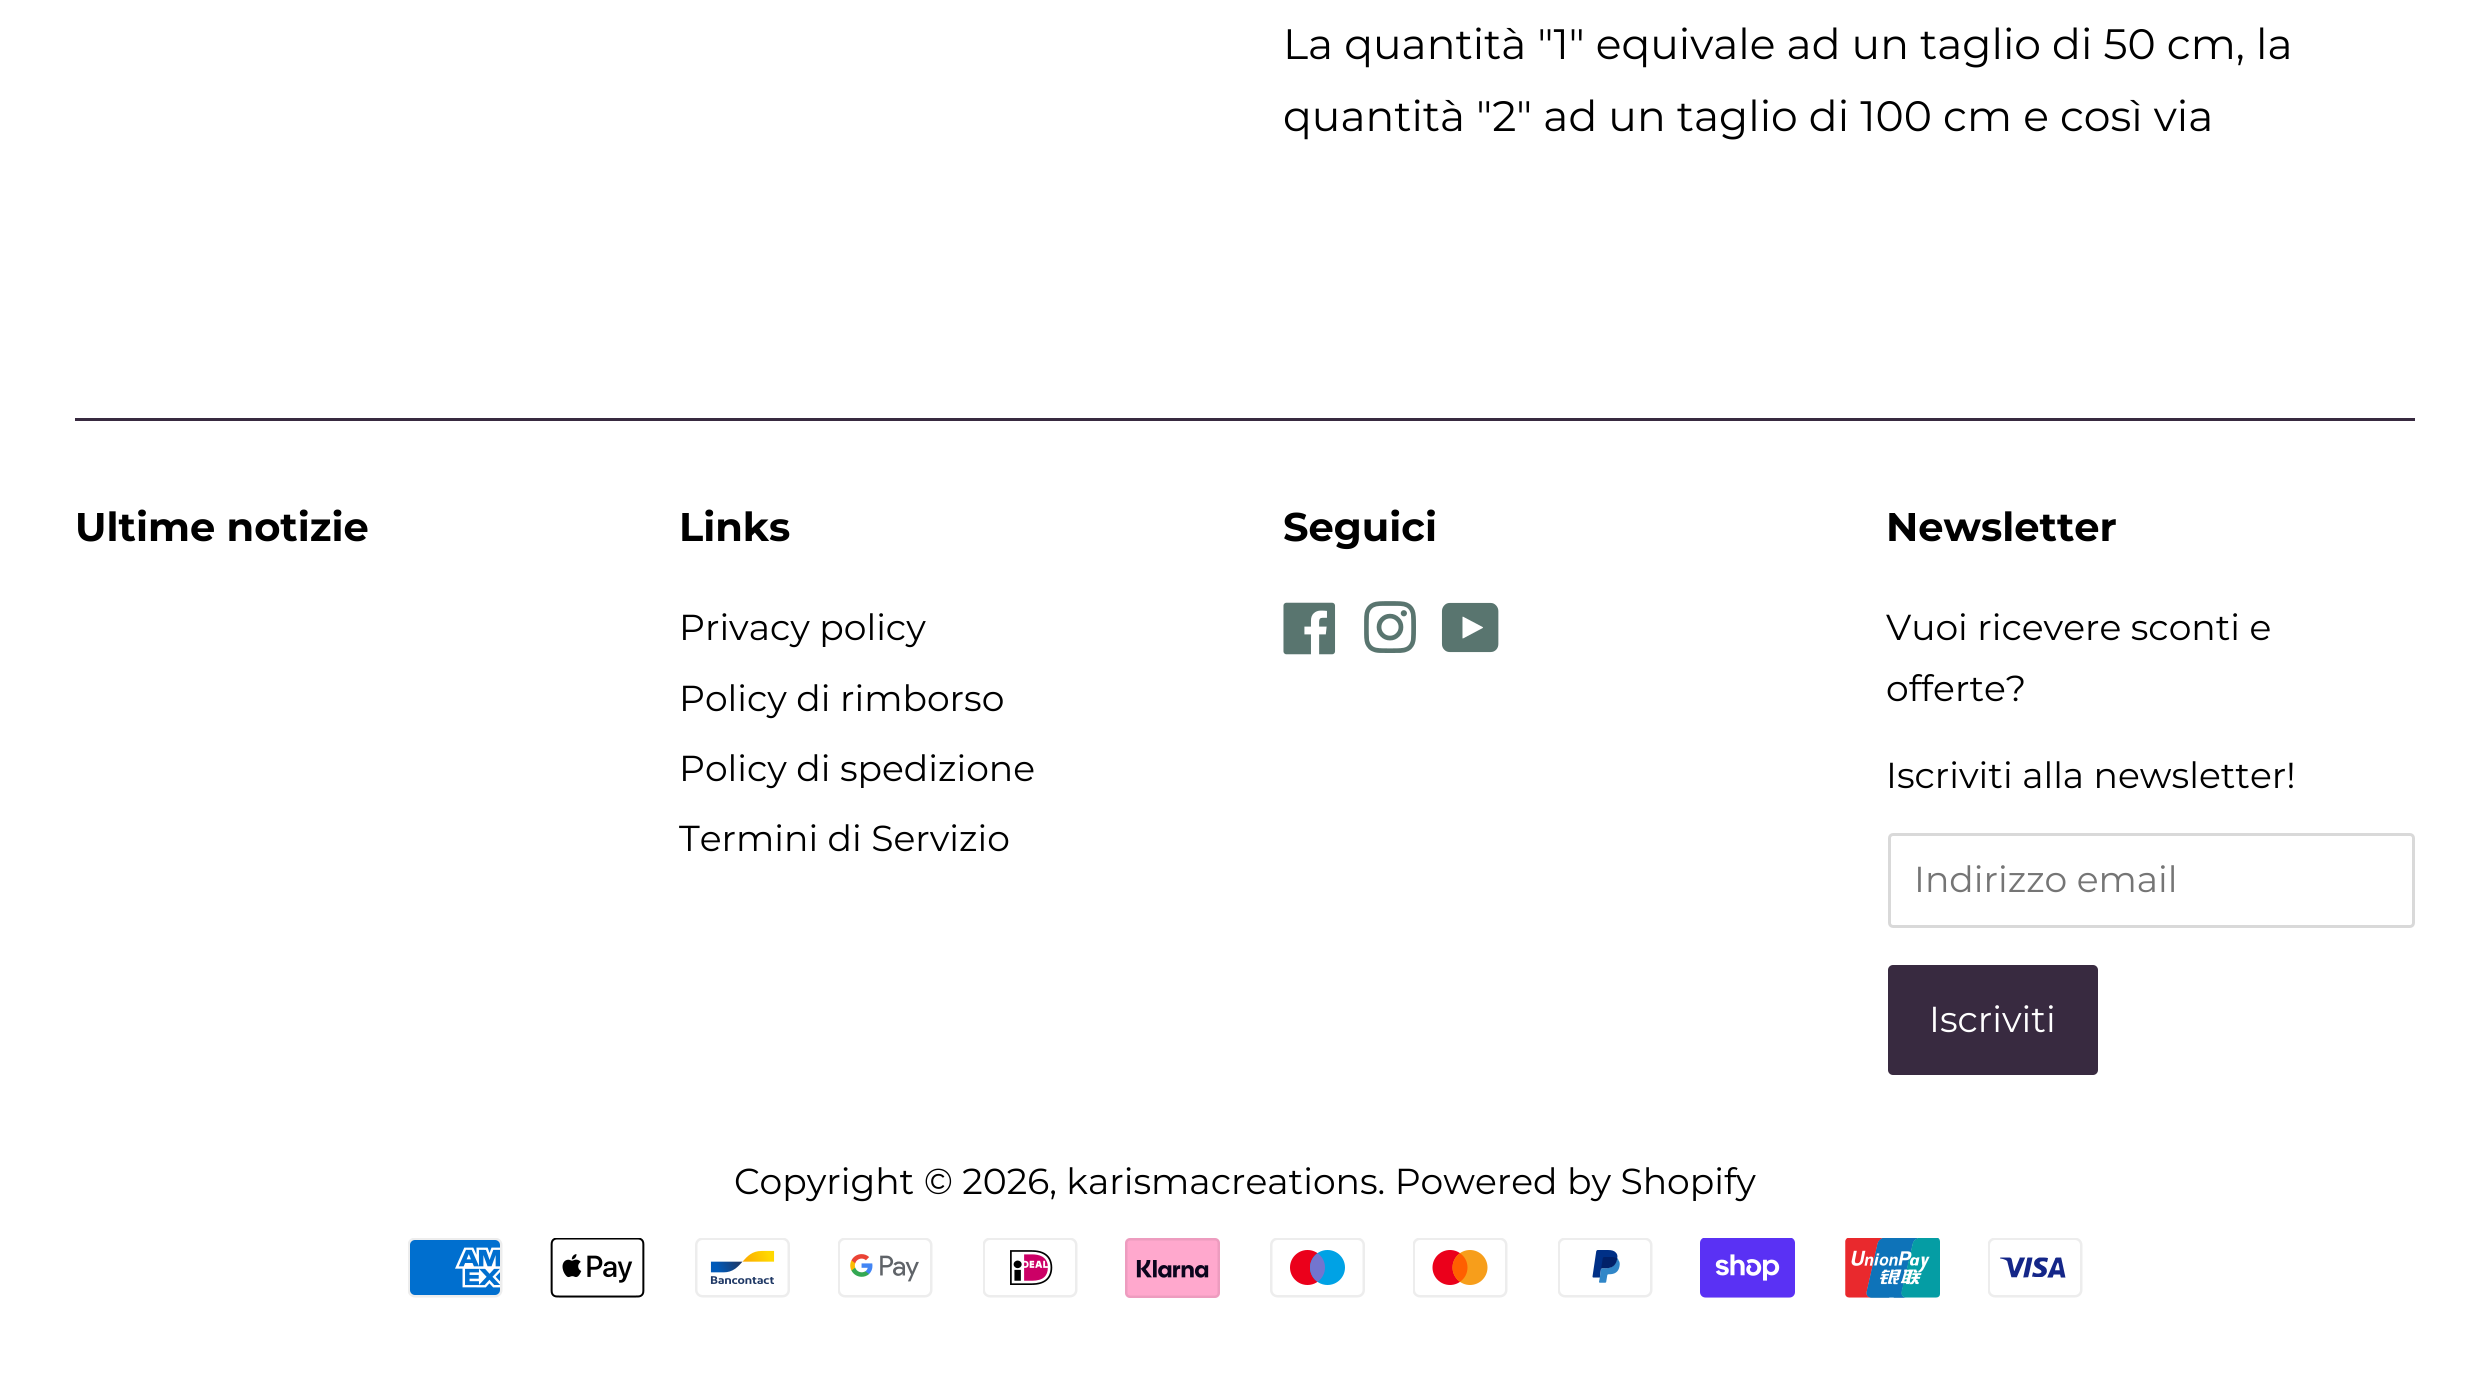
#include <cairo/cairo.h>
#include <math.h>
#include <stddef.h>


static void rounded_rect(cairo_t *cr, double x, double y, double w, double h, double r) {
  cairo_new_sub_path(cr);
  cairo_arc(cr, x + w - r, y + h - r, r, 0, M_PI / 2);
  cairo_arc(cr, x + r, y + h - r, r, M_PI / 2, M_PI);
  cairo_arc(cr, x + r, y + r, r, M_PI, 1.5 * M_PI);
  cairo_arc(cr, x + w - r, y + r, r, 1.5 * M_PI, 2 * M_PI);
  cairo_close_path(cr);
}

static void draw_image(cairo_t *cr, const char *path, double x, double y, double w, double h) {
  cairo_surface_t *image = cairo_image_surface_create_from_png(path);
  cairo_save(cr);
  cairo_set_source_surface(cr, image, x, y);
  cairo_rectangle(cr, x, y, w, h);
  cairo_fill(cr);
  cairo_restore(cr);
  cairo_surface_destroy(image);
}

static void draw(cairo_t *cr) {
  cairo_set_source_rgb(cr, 1, 1, 1);
  cairo_paint(cr);
  cairo_set_source_rgb(cr, 56 / 255.0, 42 / 255.0, 64 / 255.0);
  cairo_rectangle(cr, 75, 418, 2340, 3);
  cairo_fill(cr);
  draw_image(cr, "images/1.png", 1283, 602, 53, 53);
  draw_image(cr, "images/2.png", 1364, 601, 52, 52);
  draw_image(cr, "images/3.png", 1441, 602, 58, 51);
  rounded_rect(cr, 1889.5, 834.5, 524, 92, 3.5);
  cairo_set_source_rgb(cr, 217 / 255.0, 217 / 255.0, 217 / 255.0);
  cairo_set_line_width(cr, 3);
  cairo_stroke(cr);
  cairo_set_source_rgb(cr, 56 / 255.0, 42 / 255.0, 64 / 255.0);
  rounded_rect(cr, 1888, 965, 210, 110, 5);
  cairo_fill(cr);
  draw_image(cr, "images/4.png", 408, 1238, 95, 60);
  draw_image(cr, "images/5.png", 550, 1238, 95, 60);
  draw_image(cr, "images/6.png", 695, 1238, 95, 60);
  draw_image(cr, "images/7.png", 838, 1238, 95, 60);
  draw_image(cr, "images/8.png", 983, 1238, 95, 60);
  draw_image(cr, "images/9.png", 1125, 1238, 95, 60);
  draw_image(cr, "images/10.png", 1270, 1238, 95, 60);
  draw_image(cr, "images/11.png", 1413, 1238, 95, 60);
  draw_image(cr, "images/12.png", 1558, 1238, 95, 60);
  draw_image(cr, "images/13.png", 1700, 1238, 95, 60);
  draw_image(cr, "images/14.png", 1845, 1238, 95, 60);
  draw_image(cr, "images/15.png", 1988, 1238, 95, 60);
  cairo_select_font_face(cr, "Montserrat", CAIRO_FONT_SLANT_NORMAL, CAIRO_FONT_WEIGHT_NORMAL);
  cairo_set_font_size(cr, 42.5);
  cairo_set_source_rgb(cr, 0, 0, 0);
  cairo_move_to(cr, 1283, 59);
  cairo_show_text(cr, "La quantità \"1\" equivale ad un taglio di 50 cm, la");
  cairo_move_to(cr, 1283, 131);
  cairo_show_text(cr, "quantità \"2\" ad un taglio di 100 cm e così via");
  cairo_select_font_face(cr, "Montserrat", CAIRO_FONT_SLANT_NORMAL, CAIRO_FONT_WEIGHT_BOLD);
  cairo_set_font_size(cr, 40);
  cairo_move_to(cr, 75, 541);
  cairo_show_text(cr, "Ultime notizie");
  cairo_move_to(cr, 679, 541);
  cairo_show_text(cr, "Links");
  cairo_select_font_face(cr, "Montserrat", CAIRO_FONT_SLANT_NORMAL, CAIRO_FONT_WEIGHT_NORMAL);
  cairo_set_font_size(cr, 36.1);
  cairo_move_to(cr, 679, 640);
  cairo_show_text(cr, "Privacy policy");
  cairo_move_to(cr, 679, 711);
  cairo_show_text(cr, "Policy di rimborso");
  cairo_move_to(cr, 679, 781);
  cairo_show_text(cr, "Policy di spedizione");
  cairo_move_to(cr, 679, 851);
  cairo_show_text(cr, "Termini di Servizio");
  cairo_select_font_face(cr, "Montserrat", CAIRO_FONT_SLANT_NORMAL, CAIRO_FONT_WEIGHT_BOLD);
  cairo_set_font_size(cr, 40);
  cairo_move_to(cr, 1283, 541);
  cairo_show_text(cr, "Seguici");
  cairo_move_to(cr, 1886, 541);
  cairo_show_text(cr, "Newsletter");
  cairo_select_font_face(cr, "Montserrat", CAIRO_FONT_SLANT_NORMAL, CAIRO_FONT_WEIGHT_NORMAL);
  cairo_set_font_size(cr, 36.1);
  cairo_move_to(cr, 1886, 640);
  cairo_show_text(cr, "Vuoi ricevere sconti e");
  cairo_move_to(cr, 1886, 701);
  cairo_show_text(cr, "offerte?");
  cairo_move_to(cr, 1886, 788);
  cairo_show_text(cr, "Iscriviti alla newsletter!");
  cairo_set_source_rgb(cr, 117 / 255.0, 117 / 255.0, 117 / 255.0);
  cairo_move_to(cr, 1914, 892);
  cairo_show_text(cr, "Indirizzo email");
  cairo_set_source_rgb(cr, 1, 1, 1);
  cairo_move_to(cr, 1929, 1032);
  cairo_show_text(cr, "Iscriviti");
  cairo_set_source_rgb(cr, 0, 0, 0);
  cairo_move_to(cr, 734, 1194);
  cairo_show_text(cr, "Copyright © 2026, karismacreations. Powered by Shopify");
}

int main(void) {
  cairo_surface_t *surface = cairo_image_surface_create(CAIRO_FORMAT_RGB24, 2490, 1384);
  cairo_t *cr = cairo_create(surface);
  cairo_font_options_t *options = cairo_font_options_create();
  cairo_font_options_set_hint_metrics(options, CAIRO_HINT_METRICS_OFF);
  cairo_font_options_set_hint_style(options, CAIRO_HINT_STYLE_NONE);
  cairo_set_font_options(cr, options);
  cairo_set_miter_limit(cr, 4);
  draw(cr);
  cairo_surface_write_to_png(surface, "out.png");
  cairo_font_options_destroy(options);
  cairo_destroy(cr);
  cairo_surface_destroy(surface);
  return 0;
}
